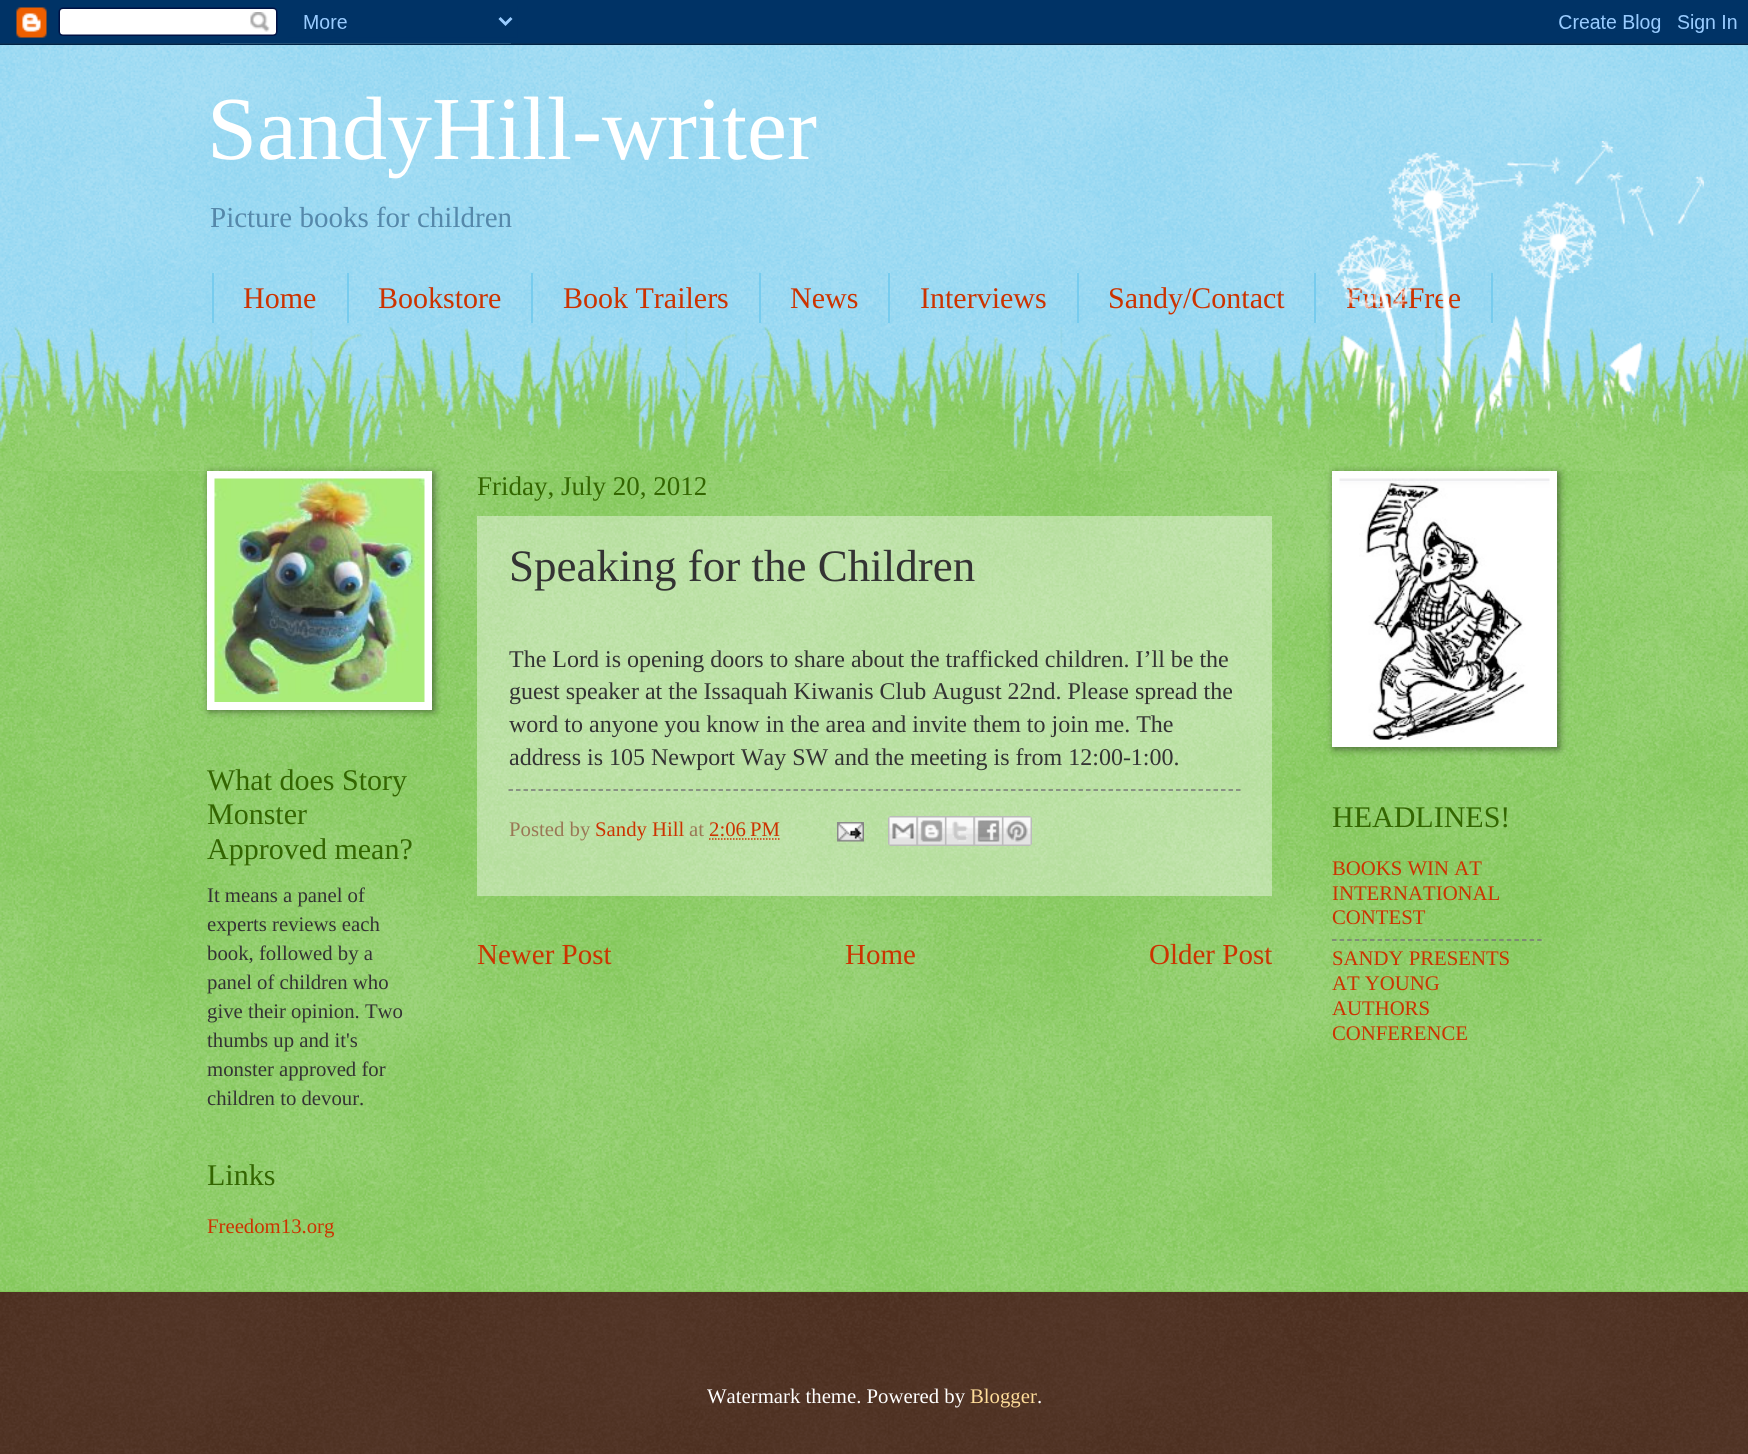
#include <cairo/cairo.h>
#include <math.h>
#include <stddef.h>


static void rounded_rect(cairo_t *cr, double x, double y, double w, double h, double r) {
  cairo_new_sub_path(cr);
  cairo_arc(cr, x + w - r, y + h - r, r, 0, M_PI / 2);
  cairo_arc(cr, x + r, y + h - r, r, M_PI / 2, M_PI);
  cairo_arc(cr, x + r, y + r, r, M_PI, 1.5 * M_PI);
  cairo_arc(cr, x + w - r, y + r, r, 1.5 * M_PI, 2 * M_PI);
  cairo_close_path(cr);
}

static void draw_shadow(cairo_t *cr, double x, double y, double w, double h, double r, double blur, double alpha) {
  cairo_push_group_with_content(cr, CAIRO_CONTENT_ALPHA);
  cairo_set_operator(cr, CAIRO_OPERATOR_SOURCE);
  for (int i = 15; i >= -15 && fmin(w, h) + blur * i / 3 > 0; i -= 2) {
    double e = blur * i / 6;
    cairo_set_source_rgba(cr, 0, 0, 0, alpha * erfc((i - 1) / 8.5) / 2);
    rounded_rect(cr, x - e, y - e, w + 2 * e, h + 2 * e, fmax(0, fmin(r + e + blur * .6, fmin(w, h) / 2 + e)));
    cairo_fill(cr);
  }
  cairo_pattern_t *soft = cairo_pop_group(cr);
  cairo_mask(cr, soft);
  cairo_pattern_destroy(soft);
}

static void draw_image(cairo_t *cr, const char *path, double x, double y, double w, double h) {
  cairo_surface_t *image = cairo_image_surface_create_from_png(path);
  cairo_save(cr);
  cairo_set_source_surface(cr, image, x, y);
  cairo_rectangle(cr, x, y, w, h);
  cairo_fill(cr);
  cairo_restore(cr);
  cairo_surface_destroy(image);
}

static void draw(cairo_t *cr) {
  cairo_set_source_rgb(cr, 119 / 255.0, 204 / 255.0, 238 / 255.0);
  cairo_paint(cr);
  draw_image(cr, "images/1.png", 0, 43, 1748, 421);
  draw_image(cr, "images/2.png", 0, 0, 1748, 45);
  cairo_set_source_rgb(cr, 119 / 255.0, 204 / 255.0, 238 / 255.0);
  cairo_rectangle(cr, 347, 273, 2, 50);
  cairo_fill(cr);
  cairo_rectangle(cr, 212, 273, 2, 50);
  cairo_fill(cr);
  cairo_rectangle(cr, 531, 273, 2, 50);
  cairo_fill(cr);
  cairo_rectangle(cr, 759, 273, 2, 50);
  cairo_fill(cr);
  cairo_rectangle(cr, 888, 273, 2, 50);
  cairo_fill(cr);
  cairo_rectangle(cr, 1077, 273, 2, 50);
  cairo_fill(cr);
  cairo_rectangle(cr, 1314, 273, 2, 50);
  cairo_fill(cr);
  cairo_rectangle(cr, 1491, 273, 2, 50);
  cairo_fill(cr);
  cairo_set_source_rgb(cr, 102 / 255.0, 187 / 255.0, 51 / 255.0);
  cairo_rectangle(cr, 0, 471, 1748, 821);
  cairo_fill(cr);
  draw_image(cr, "images/3.png", 0, 471, 1748, 821);
  cairo_set_source_rgba(cr, 1, 1, 1, 0.4);
  cairo_rectangle(cr, 477, 516, 795, 380);
  cairo_fill(cr);
  cairo_new_path(cr);
  cairo_move_to(cr, 508.5, 790);
  cairo_line_to(cr, 1240.5, 790);
  cairo_set_source_rgb(cr, 119 / 255.0, 119 / 255.0, 119 / 255.0);
  cairo_set_line_width(cr, 1.5);
  cairo_set_dash(cr, (double[]){4.5, 3}, 2, 0);
  cairo_stroke(cr);
  cairo_new_path(cr);
  cairo_move_to(cr, 709, 839);
  cairo_line_to(cr, 780, 839);
  cairo_set_source_rgb(cr, 204 / 255.0, 51 / 255.0, 0);
  cairo_set_dash(cr, (double[]){1.5, 1.5}, 2, 0);
  cairo_stroke(cr);
  draw_image(cr, "images/7.png", 837, 822, 27, 20);
  draw_image(cr, "images/8.png", 888, 816, 29, 30);
  draw_image(cr, "images/9.png", 916, 816, 29, 30);
  draw_image(cr, "images/10.png", 945, 816, 29, 30);
  draw_image(cr, "images/11.png", 973, 816, 29, 30);
  draw_image(cr, "images/12.png", 1002, 816, 30, 30);
  cairo_new_path(cr);
  cairo_move_to(cr, 1332, 940);
  cairo_line_to(cr, 1542, 940);
  cairo_set_source_rgb(cr, 119 / 255.0, 119 / 255.0, 119 / 255.0);
  cairo_set_dash(cr, (double[]){4.5, 3.1}, 2, 0);
  cairo_stroke(cr);
  cairo_set_source_rgb(cr, 51 / 255.0, 17 / 255.0, 0);
  cairo_rectangle(cr, 0, 1292, 1748, 162);
  cairo_fill(cr);
  draw_image(cr, "images/14.png", 0, 1291, 1748, 163);
  cairo_select_font_face(cr, "Liberation Serif", CAIRO_FONT_SLANT_NORMAL, CAIRO_FONT_WEIGHT_NORMAL);
  cairo_set_font_size(cr, 90);
  cairo_set_source_rgb(cr, 1, 1, 1);
  cairo_move_to(cr, 207, 159);
  cairo_show_text(cr, "SandyHill-writer");
  cairo_set_font_size(cr, 29);
  cairo_set_source_rgb(cr, 85 / 255.0, 136 / 255.0, 170 / 255.0);
  cairo_move_to(cr, 210, 227);
  cairo_show_text(cr, "Picture books for children");
  cairo_set_font_size(cr, 30);
  cairo_set_source_rgb(cr, 204 / 255.0, 51 / 255.0, 0);
  cairo_move_to(cr, 243, 308);
  cairo_show_text(cr, "Home");
  cairo_move_to(cr, 378, 308);
  cairo_show_text(cr, "Bookstore");
  cairo_move_to(cr, 563, 308);
  cairo_show_text(cr, "Book Trailers");
  cairo_move_to(cr, 790, 308);
  cairo_show_text(cr, "News");
  cairo_move_to(cr, 920, 308);
  cairo_show_text(cr, "Interviews");
  cairo_move_to(cr, 1108, 308);
  cairo_show_text(cr, "Sandy/Contact");
  cairo_move_to(cr, 1346, 308);
  cairo_show_text(cr, "Fun4Free");
  draw_image(cr, "images/4.png", 1329, 141, 375, 323);
  draw_image(cr, "images/5.png", 0, 326, 1748, 145);
  cairo_set_source_rgb(cr, 0, 0, 0);
  draw_shadow(cr, 209, 473, 225, 238, 0, 4, 0.5);
  cairo_set_source_rgb(cr, 1, 1, 1);
  cairo_rectangle(cr, 207, 471, 225, 239);
  cairo_fill(cr);
  draw_image(cr, "images/6.png", 214, 478, 211, 224);
  cairo_set_source_rgb(cr, 51 / 255.0, 102 / 255.0, 0);
  cairo_move_to(cr, 207, 790);
  cairo_show_text(cr, "What does Story");
  cairo_move_to(cr, 207, 824);
  cairo_show_text(cr, "Monster");
  cairo_move_to(cr, 207, 859);
  cairo_show_text(cr, "Approved mean?");
  cairo_set_font_size(cr, 20.75);
  cairo_set_source_rgb(cr, 51 / 255.0, 51 / 255.0, 51 / 255.0);
  cairo_move_to(cr, 207, 902);
  cairo_show_text(cr, "It means a panel of");
  cairo_move_to(cr, 207, 931);
  cairo_show_text(cr, "experts reviews each");
  cairo_move_to(cr, 207, 960);
  cairo_show_text(cr, "book, followed by a");
  cairo_move_to(cr, 207, 989);
  cairo_show_text(cr, "panel of children who");
  cairo_move_to(cr, 207, 1018);
  cairo_show_text(cr, "give their opinion. Two");
  cairo_move_to(cr, 207, 1047);
  cairo_show_text(cr, "thumbs up and it's");
  cairo_move_to(cr, 207, 1076);
  cairo_show_text(cr, "monster approved for");
  cairo_move_to(cr, 207, 1105);
  cairo_show_text(cr, "children to devour.");
  cairo_set_font_size(cr, 30);
  cairo_set_source_rgb(cr, 51 / 255.0, 102 / 255.0, 0);
  cairo_move_to(cr, 207, 1185);
  cairo_show_text(cr, "Links");
  cairo_set_font_size(cr, 20.75);
  cairo_set_source_rgb(cr, 204 / 255.0, 51 / 255.0, 0);
  cairo_move_to(cr, 207, 1233);
  cairo_show_text(cr, "Freedom13.org");
  cairo_set_font_size(cr, 27);
  cairo_set_source_rgb(cr, 51 / 255.0, 102 / 255.0, 0);
  cairo_move_to(cr, 477, 495);
  cairo_show_text(cr, "Friday, July 20, 2012");
  cairo_set_font_size(cr, 45);
  cairo_set_source_rgb(cr, 51 / 255.0, 51 / 255.0, 51 / 255.0);
  cairo_move_to(cr, 509, 581);
  cairo_show_text(cr, "Speaking for the Children");
  cairo_set_font_size(cr, 24);
  cairo_move_to(cr, 509, 667);
  cairo_show_text(cr, "The Lord is opening doors to share about the trafficked children. I’ll be the");
  cairo_move_to(cr, 509, 699);
  cairo_show_text(cr, "guest speaker at the Issaquah Kiwanis Club August 22nd. Please spread the");
  cairo_move_to(cr, 509, 732);
  cairo_show_text(cr, "word to anyone you know in the area and invite them to join me. The");
  cairo_move_to(cr, 509, 765);
  cairo_show_text(cr, "address is 105 Newport Way SW and the meeting is from 12:00-1:00.");
  cairo_set_font_size(cr, 20.75);
  cairo_set_source_rgb(cr, 153 / 255.0, 119 / 255.0, 85 / 255.0);
  cairo_move_to(cr, 509, 836);
  cairo_show_text(cr, "Posted by");
  cairo_set_source_rgb(cr, 204 / 255.0, 51 / 255.0, 0);
  cairo_move_to(cr, 595, 836);
  cairo_show_text(cr, "Sandy Hill");
  cairo_set_source_rgb(cr, 153 / 255.0, 119 / 255.0, 85 / 255.0);
  cairo_move_to(cr, 689, 836);
  cairo_show_text(cr, "at");
  cairo_set_source_rgb(cr, 204 / 255.0, 51 / 255.0, 0);
  cairo_move_to(cr, 709, 836);
  cairo_show_text(cr, "2:06 PM");
  cairo_set_font_size(cr, 29);
  cairo_move_to(cr, 477, 964);
  cairo_show_text(cr, "Newer Post");
  cairo_move_to(cr, 845, 964);
  cairo_show_text(cr, "Home");
  cairo_move_to(cr, 1149, 964);
  cairo_show_text(cr, "Older Post");
  cairo_set_source_rgb(cr, 0, 0, 0);
  draw_shadow(cr, 1334, 473, 225, 276, 0, 4, 0.5);
  cairo_set_source_rgb(cr, 1, 1, 1);
  cairo_rectangle(cr, 1332, 471, 225, 276);
  cairo_fill(cr);
  draw_image(cr, "images/13.png", 1339, 478, 211, 262);
  cairo_set_font_size(cr, 30);
  cairo_set_source_rgb(cr, 51 / 255.0, 102 / 255.0, 0);
  cairo_move_to(cr, 1332, 827);
  cairo_show_text(cr, "HEADLINES!");
  cairo_set_font_size(cr, 20.75);
  cairo_set_source_rgb(cr, 204 / 255.0, 51 / 255.0, 0);
  cairo_move_to(cr, 1332, 875);
  cairo_show_text(cr, "BOOKS WIN AT");
  cairo_move_to(cr, 1332, 900);
  cairo_show_text(cr, "INTERNATIONAL");
  cairo_move_to(cr, 1332, 924);
  cairo_show_text(cr, "CONTEST");
  cairo_move_to(cr, 1332, 965);
  cairo_show_text(cr, "SANDY PRESENTS");
  cairo_move_to(cr, 1332, 990);
  cairo_show_text(cr, "AT YOUNG");
  cairo_move_to(cr, 1332, 1015);
  cairo_show_text(cr, "AUTHORS");
  cairo_move_to(cr, 1332, 1040);
  cairo_show_text(cr, "CONFERENCE");
  cairo_set_source_rgb(cr, 1, 1, 1);
  cairo_move_to(cr, 707, 1403);
  cairo_show_text(cr, "Watermark theme. Powered by");
  cairo_set_source_rgb(cr, 1, 221 / 255.0, 153 / 255.0);
  cairo_move_to(cr, 970, 1403);
  cairo_show_text(cr, "Blogger");
  cairo_set_source_rgb(cr, 1, 1, 1);
  cairo_move_to(cr, 1037, 1403);
  cairo_show_text(cr, ".");
}

int main(void) {
  cairo_surface_t *surface = cairo_image_surface_create(CAIRO_FORMAT_RGB24, 1748, 1454);
  cairo_t *cr = cairo_create(surface);
  cairo_font_options_t *options = cairo_font_options_create();
  cairo_font_options_set_hint_metrics(options, CAIRO_HINT_METRICS_OFF);
  cairo_font_options_set_hint_style(options, CAIRO_HINT_STYLE_NONE);
  cairo_set_font_options(cr, options);
  cairo_set_miter_limit(cr, 4);
  draw(cr);
  cairo_surface_write_to_png(surface, "out.png");
  cairo_font_options_destroy(options);
  cairo_destroy(cr);
  cairo_surface_destroy(surface);
  return 0;
}
